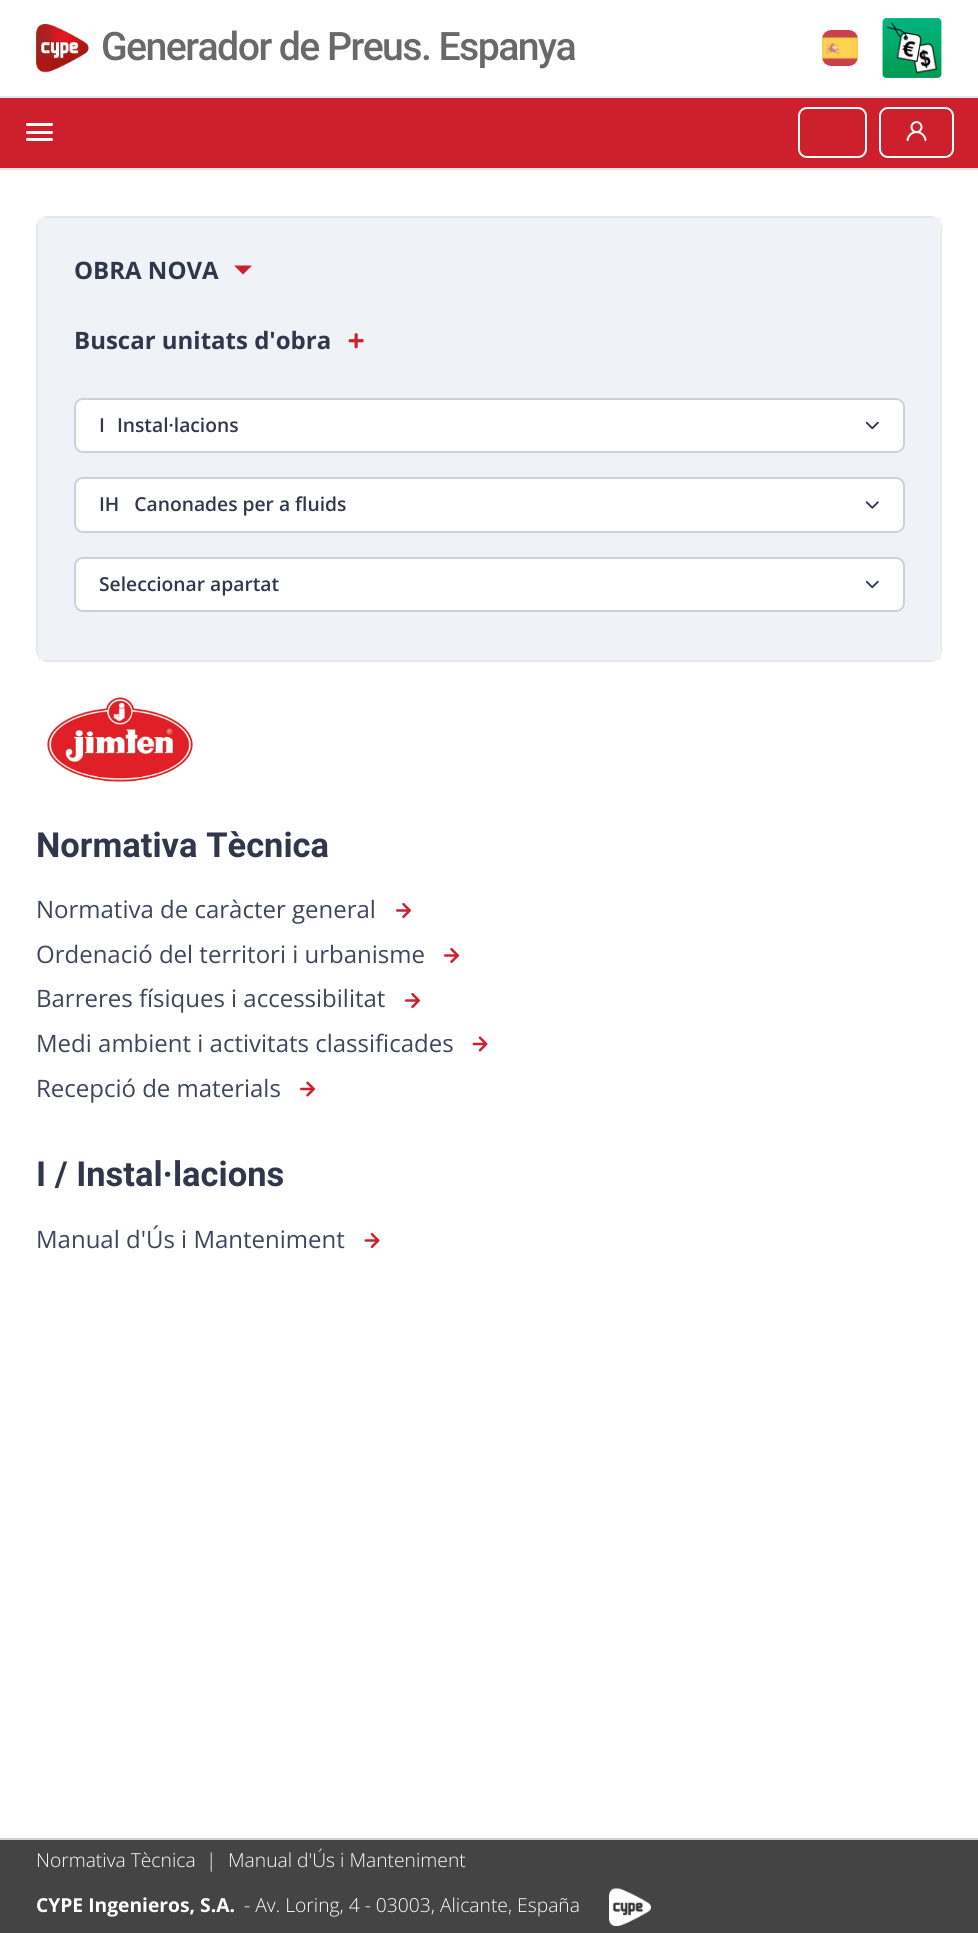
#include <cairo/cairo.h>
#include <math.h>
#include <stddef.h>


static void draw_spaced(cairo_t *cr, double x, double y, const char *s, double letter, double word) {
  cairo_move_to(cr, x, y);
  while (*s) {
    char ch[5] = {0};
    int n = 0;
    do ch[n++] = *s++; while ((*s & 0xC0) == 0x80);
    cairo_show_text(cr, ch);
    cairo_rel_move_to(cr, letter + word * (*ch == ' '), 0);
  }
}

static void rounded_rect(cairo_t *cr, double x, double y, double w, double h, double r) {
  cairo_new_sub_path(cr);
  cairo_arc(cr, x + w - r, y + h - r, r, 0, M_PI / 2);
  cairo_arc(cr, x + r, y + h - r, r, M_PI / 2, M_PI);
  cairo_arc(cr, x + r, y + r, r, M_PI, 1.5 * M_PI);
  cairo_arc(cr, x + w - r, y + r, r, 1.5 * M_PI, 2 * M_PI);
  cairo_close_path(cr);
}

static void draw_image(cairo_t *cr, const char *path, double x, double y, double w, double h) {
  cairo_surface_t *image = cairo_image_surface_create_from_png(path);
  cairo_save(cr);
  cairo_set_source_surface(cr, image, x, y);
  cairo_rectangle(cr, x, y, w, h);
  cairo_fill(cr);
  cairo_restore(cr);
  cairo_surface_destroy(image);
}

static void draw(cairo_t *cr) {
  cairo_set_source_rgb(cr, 1, 1, 1);
  cairo_paint(cr);
  cairo_set_source_rgb(cr, 227 / 255.0, 230 / 255.0, 237 / 255.0);
  cairo_rectangle(cr, 0, 96, 978, 2);
  cairo_fill(cr);
  draw_image(cr, "images/1.png", 36, 24, 53, 49);
  draw_image(cr, "images/2.png", 822, 30, 36, 36);
  draw_image(cr, "images/3.png", 882, 18, 60, 60);
  cairo_set_source_rgb(cr, 205 / 255.0, 32 / 255.0, 44 / 255.0);
  cairo_rectangle(cr, 0, 98, 978, 70);
  cairo_fill(cr);
  cairo_set_source_rgb(cr, 227 / 255.0, 230 / 255.0, 237 / 255.0);
  cairo_rectangle(cr, 0, 168, 978, 2);
  cairo_fill(cr);
  cairo_set_source_rgb(cr, 1, 1, 1);
  rounded_rect(cr, 26, 123, 27, 3, 1.5);
  cairo_fill(cr);
  rounded_rect(cr, 26, 131, 27, 3, 1.5);
  cairo_fill(cr);
  rounded_rect(cr, 26, 138, 27, 3, 1.5);
  cairo_fill(cr);
  rounded_rect(cr, 799, 108, 67, 49, 8);
  cairo_stroke(cr);
  rounded_rect(cr, 880, 108, 73, 49, 8);
  cairo_stroke(cr);
  draw_image(cr, "images/4.png", 906, 121, 21, 21);
  rounded_rect(cr, 37, 217, 904, 444, 11);
  cairo_set_source_rgb(cr, 227 / 255.0, 230 / 255.0, 237 / 255.0);
  cairo_stroke(cr);
  cairo_set_source_rgb(cr, 239 / 255.0, 242 / 255.0, 246 / 255.0);
  cairo_rectangle(cr, 38, 218, 903, 442);
  cairo_fill(cr);
  cairo_set_source_rgb(cr, 205 / 255.0, 32 / 255.0, 44 / 255.0);
  cairo_new_path(cr);
  cairo_move_to(cr, 234, 265.5);
  cairo_line_to(cr, 252, 265.5);
  cairo_line_to(cr, 243, 274.5);
  cairo_close_path(cr);
  cairo_fill(cr);
  draw_image(cr, "images/5.png", 348, 333, 16, 16);
  cairo_set_source_rgb(cr, 1, 1, 1);
  rounded_rect(cr, 74, 398, 831, 55, 9);
  cairo_fill(cr);
  draw_image(cr, "images/6.png", 866, 421, 13, 9);
  rounded_rect(cr, 75, 399, 829, 53, 8);
  cairo_set_source_rgb(cr, 203 / 255.0, 208 / 255.0, 221 / 255.0);
  cairo_stroke(cr);
  cairo_set_source_rgb(cr, 1, 1, 1);
  rounded_rect(cr, 74, 477, 831, 56, 9);
  cairo_fill(cr);
  draw_image(cr, "images/7.png", 866, 501, 13, 8);
  rounded_rect(cr, 75, 478, 829, 54, 8);
  cairo_set_source_rgb(cr, 203 / 255.0, 208 / 255.0, 221 / 255.0);
  cairo_stroke(cr);
  cairo_set_source_rgb(cr, 1, 1, 1);
  rounded_rect(cr, 74, 557, 831, 55, 9);
  cairo_fill(cr);
  draw_image(cr, "images/6.png", 866, 580, 13, 9);
  rounded_rect(cr, 75, 558, 829, 53, 8);
  cairo_set_source_rgb(cr, 203 / 255.0, 208 / 255.0, 221 / 255.0);
  cairo_stroke(cr);
  draw_image(cr, "images/8.png", 47, 697, 146, 85);
  draw_image(cr, "images/9.png", 396, 903, 15, 15);
  draw_image(cr, "images/9.png", 444, 948, 15, 15);
  draw_image(cr, "images/9.png", 405, 993, 15, 15);
  draw_image(cr, "images/10.png", 472, 1036, 16, 16);
  draw_image(cr, "images/11.png", 300, 1081, 15, 16);
  draw_image(cr, "images/12.png", 364, 1233, 16, 15);
  cairo_set_source_rgb(cr, 68 / 255.0, 68 / 255.0, 68 / 255.0);
  cairo_rectangle(cr, 0, 1840, 978, 93);
  cairo_fill(cr);
  cairo_set_source_rgb(cr, 203 / 255.0, 208 / 255.0, 221 / 255.0);
  cairo_rectangle(cr, 0, 1838, 978, 2);
  cairo_fill(cr);
  draw_image(cr, "images/13.png", 609, 1888, 42, 38);
  cairo_select_font_face(cr, "Roboto Medium", CAIRO_FONT_SLANT_NORMAL, CAIRO_FONT_WEIGHT_NORMAL);
  cairo_set_font_size(cr, 39.25);
  cairo_set_source_rgb(cr, 105 / 255.0, 105 / 255.0, 105 / 255.0);
  draw_spaced(cr, 101, 60, "Generador de Preus. Espanya", -1.6, 0);
  cairo_select_font_face(cr, "Open Sans", CAIRO_FONT_SLANT_NORMAL, CAIRO_FONT_WEIGHT_BOLD);
  cairo_set_font_size(cr, 24);
  cairo_set_source_rgb(cr, 49 / 255.0, 55 / 255.0, 74 / 255.0);
  cairo_move_to(cr, 74, 279);
  cairo_show_text(cr, "OBRA NOVA");
  cairo_move_to(cr, 74, 349);
  cairo_show_text(cr, "Buscar unitats d'obra");
  cairo_select_font_face(cr, "Open Sans SemiBold", CAIRO_FONT_SLANT_NORMAL, CAIRO_FONT_WEIGHT_NORMAL);
  cairo_set_font_size(cr, 19.25);
  draw_spaced(cr, 99, 432, "I   Instal·lacions", 0, -1);
  cairo_move_to(cr, 99, 511);
  cairo_show_text(cr, "IH   Canonades per a fluids");
  cairo_move_to(cr, 99, 591);
  cairo_show_text(cr, "Seleccionar apartat");
  cairo_select_font_face(cr, "Roboto", CAIRO_FONT_SLANT_NORMAL, CAIRO_FONT_WEIGHT_BOLD);
  cairo_set_font_size(cr, 34.5);
  cairo_move_to(cr, 36, 857);
  cairo_show_text(cr, "Normativa Tècnica");
  cairo_select_font_face(cr, "Open Sans", CAIRO_FONT_SLANT_NORMAL, CAIRO_FONT_WEIGHT_NORMAL);
  cairo_set_font_size(cr, 24);
  cairo_set_source_rgb(cr, 62 / 255.0, 70 / 255.0, 91 / 255.0);
  cairo_move_to(cr, 36, 918);
  cairo_show_text(cr, "Normativa de caràcter general");
  cairo_move_to(cr, 36, 963);
  cairo_show_text(cr, "Ordenació del territori i urbanisme");
  cairo_move_to(cr, 36, 1007);
  cairo_show_text(cr, "Barreres físiques i accessibilitat");
  cairo_move_to(cr, 36, 1052);
  cairo_show_text(cr, "Medi ambient i activitats classificades");
  cairo_move_to(cr, 36, 1097);
  cairo_show_text(cr, "Recepció de materials");
  cairo_select_font_face(cr, "Roboto", CAIRO_FONT_SLANT_NORMAL, CAIRO_FONT_WEIGHT_BOLD);
  cairo_set_font_size(cr, 34.5);
  cairo_set_source_rgb(cr, 49 / 255.0, 55 / 255.0, 74 / 255.0);
  cairo_move_to(cr, 36, 1186);
  cairo_show_text(cr, "I / Instal·lacions");
  cairo_select_font_face(cr, "Open Sans", CAIRO_FONT_SLANT_NORMAL, CAIRO_FONT_WEIGHT_NORMAL);
  cairo_set_font_size(cr, 24);
  cairo_set_source_rgb(cr, 62 / 255.0, 70 / 255.0, 91 / 255.0);
  cairo_move_to(cr, 36, 1248);
  cairo_show_text(cr, "Manual d'Ús i Manteniment");
  cairo_select_font_face(cr, "Open Sans Light", CAIRO_FONT_SLANT_NORMAL, CAIRO_FONT_WEIGHT_NORMAL);
  cairo_set_font_size(cr, 19.25);
  cairo_set_source_rgb(cr, 1, 1, 1);
  cairo_move_to(cr, 36, 1867);
  cairo_show_text(cr, "Normativa Tècnica");
  cairo_move_to(cr, 206, 1867);
  cairo_show_text(cr, "|");
  cairo_move_to(cr, 228, 1867);
  cairo_show_text(cr, "Manual d'Ús i Manteniment");
  cairo_select_font_face(cr, "Open Sans", CAIRO_FONT_SLANT_NORMAL, CAIRO_FONT_WEIGHT_BOLD);
  cairo_move_to(cr, 36, 1912);
  cairo_show_text(cr, "CYPE Ingenieros, S.A.");
  cairo_select_font_face(cr, "Open Sans Light", CAIRO_FONT_SLANT_NORMAL, CAIRO_FONT_WEIGHT_NORMAL);
  cairo_move_to(cr, 244, 1912);
  cairo_show_text(cr, "- Av. Loring, 4 - 03003, Alicante, España");
}

int main(void) {
  cairo_surface_t *surface = cairo_image_surface_create(CAIRO_FORMAT_RGB24, 978, 1933);
  cairo_t *cr = cairo_create(surface);
  cairo_font_options_t *options = cairo_font_options_create();
  cairo_font_options_set_hint_metrics(options, CAIRO_HINT_METRICS_OFF);
  cairo_font_options_set_hint_style(options, CAIRO_HINT_STYLE_NONE);
  cairo_set_font_options(cr, options);
  cairo_set_miter_limit(cr, 4);
  draw(cr);
  cairo_surface_write_to_png(surface, "out.png");
  cairo_font_options_destroy(options);
  cairo_destroy(cr);
  cairo_surface_destroy(surface);
  return 0;
}
